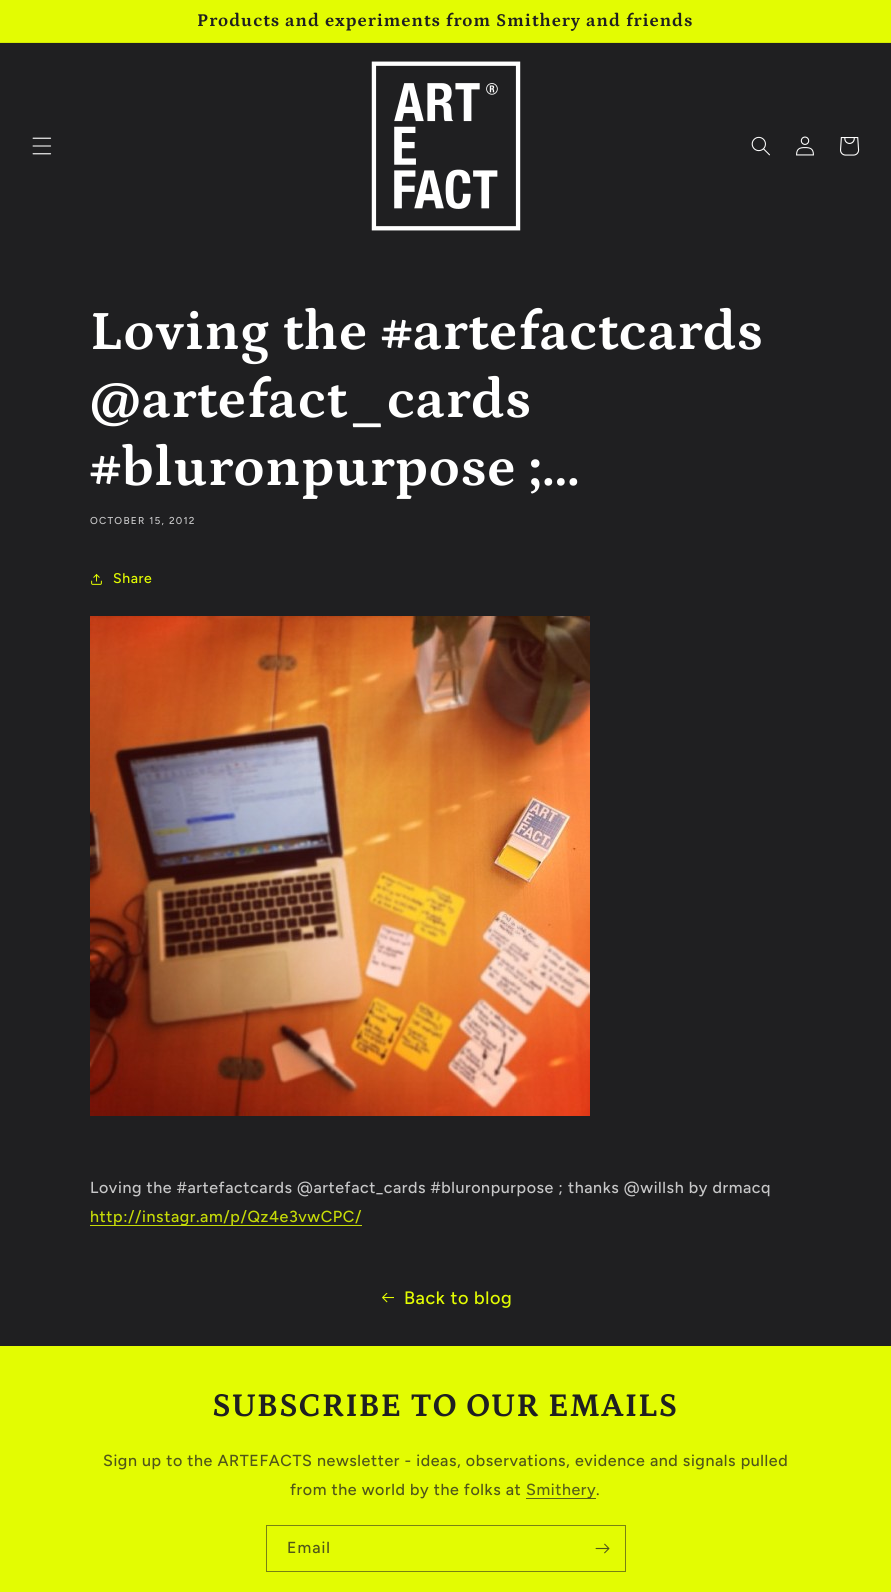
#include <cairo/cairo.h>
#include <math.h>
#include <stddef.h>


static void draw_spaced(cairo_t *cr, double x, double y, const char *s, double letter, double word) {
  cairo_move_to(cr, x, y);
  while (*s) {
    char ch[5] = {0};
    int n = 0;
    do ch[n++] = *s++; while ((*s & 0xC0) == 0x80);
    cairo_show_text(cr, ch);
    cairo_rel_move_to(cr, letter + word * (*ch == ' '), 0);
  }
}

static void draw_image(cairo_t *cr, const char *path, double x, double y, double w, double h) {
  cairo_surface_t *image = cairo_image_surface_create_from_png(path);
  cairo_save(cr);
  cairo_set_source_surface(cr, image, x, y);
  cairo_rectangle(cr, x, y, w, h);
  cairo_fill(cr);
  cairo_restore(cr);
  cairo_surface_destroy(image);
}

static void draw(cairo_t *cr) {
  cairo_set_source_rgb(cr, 31 / 255.0, 31 / 255.0, 33 / 255.0);
  cairo_paint(cr);
  cairo_set_source_rgb(cr, 227 / 255.0, 252 / 255.0, 2 / 255.0);
  cairo_rectangle(cr, 0, 0, 891, 42);
  cairo_fill(cr);
  cairo_set_source_rgb(cr, 211 / 255.0, 234 / 255.0, 4 / 255.0);
  cairo_rectangle(cr, 0, 42, 891, 1);
  cairo_fill(cr);
  draw_image(cr, "images/1.png", 32, 137, 20, 18);
  draw_image(cr, "images/2.png", 371, 61, 150, 170);
  draw_image(cr, "images/3.png", 751, 136, 19, 20);
  draw_image(cr, "images/4.png", 796, 136, 18, 20);
  draw_image(cr, "images/5.png", 840, 137, 20, 19);
  draw_image(cr, "images/6.png", 91, 574, 11, 11);
  draw_image(cr, "images/7.png", 90, 616, 500, 500);
  cairo_set_source_rgb(cr, 198 / 255.0, 219 / 255.0, 7 / 255.0);
  cairo_rectangle(cr, 90, 1225, 272, 1);
  cairo_fill(cr);
  draw_image(cr, "images/8.png", 382, 1293, 12, 10);
  cairo_set_source_rgb(cr, 227 / 255.0, 252 / 255.0, 2 / 255.0);
  cairo_rectangle(cr, 0, 1346, 891, 246);
  cairo_fill(cr);
  cairo_set_source_rgb(cr, 90 / 255.0, 97 / 255.0, 24 / 255.0);
  cairo_rectangle(cr, 526, 1498, 70, 1);
  cairo_fill(cr);
  cairo_rectangle(cr, 266.5, 1525.5, 359, 46);
  cairo_set_source_rgb(cr, 119 / 255.0, 130 / 255.0, 19 / 255.0);
  cairo_set_line_width(cr, 1);
  cairo_stroke(cr);
  draw_image(cr, "images/9.png", 595, 1543, 15, 11);
  cairo_select_font_face(cr, "Petrona", CAIRO_FONT_SLANT_NORMAL, CAIRO_FONT_WEIGHT_BOLD);
  cairo_set_font_size(cr, 18.2);
  cairo_set_source_rgb(cr, 31 / 255.0, 31 / 255.0, 33 / 255.0);
  draw_spaced(cr, 197, 26, "Products and experiments from Smithery and friends", 1, 0);
  cairo_set_font_size(cr, 56);
  cairo_set_source_rgb(cr, 1, 1, 1);
  draw_spaced(cr, 90, 349, "Loving the #artefactcards", 0.8, 0);
  draw_spaced(cr, 90, 417, "@artefact_cards", 0.8, 0);
  draw_spaced(cr, 90, 485, "#bluronpurpose ;...", 0.8, 0);
  cairo_select_font_face(cr, "Figtree Medium", CAIRO_FONT_SLANT_NORMAL, CAIRO_FONT_WEIGHT_NORMAL);
  cairo_set_font_size(cr, 10);
  cairo_set_source_rgb(cr, 199 / 255.0, 199 / 255.0, 200 / 255.0);
  draw_spaced(cr, 90, 524, "OCTOBER 15, 2012", 1.25, 0);
  cairo_set_font_size(cr, 14);
  cairo_set_source_rgb(cr, 227 / 255.0, 252 / 255.0, 2 / 255.0);
  draw_spaced(cr, 113, 583, "Share", 0.6, 0);
  cairo_set_font_size(cr, 16);
  cairo_set_source_rgb(cr, 199 / 255.0, 199 / 255.0, 200 / 255.0);
  draw_spaced(cr, 90, 1193, "Loving the #artefactcards @artefact_cards #bluronpurpose ; thanks @willsh by drmacq", 0.6, 0);
  cairo_set_source_rgb(cr, 198 / 255.0, 219 / 255.0, 7 / 255.0);
  draw_spaced(cr, 90, 1222, "http://instagr.am/p/Qz4e3vwCPC/", 0.6, 0);
  cairo_set_font_size(cr, 18);
  cairo_set_source_rgb(cr, 227 / 255.0, 252 / 255.0, 2 / 255.0);
  draw_spaced(cr, 404, 1304, "Back to blog", 0.6, 0);
  cairo_select_font_face(cr, "Petrona", CAIRO_FONT_SLANT_NORMAL, CAIRO_FONT_WEIGHT_BOLD);
  cairo_set_font_size(cr, 33.6);
  cairo_set_source_rgb(cr, 31 / 255.0, 31 / 255.0, 33 / 255.0);
  draw_spaced(cr, 212, 1416, "SUBSCRIBE TO OUR EMAILS", 0.8, 0);
  cairo_select_font_face(cr, "Figtree Medium", CAIRO_FONT_SLANT_NORMAL, CAIRO_FONT_WEIGHT_NORMAL);
  cairo_set_font_size(cr, 16);
  cairo_set_source_rgb(cr, 80 / 255.0, 86 / 255.0, 25 / 255.0);
  draw_spaced(cr, 103, 1466, "Sign up to the ARTEFACTS newsletter - ideas, observations, evidence and signals pulled", 0.6, 0);
  draw_spaced(cr, 290, 1495, "from the world by the folks at", 0.6, 0);
  cairo_set_source_rgb(cr, 89 / 255.0, 97 / 255.0, 24 / 255.0);
  draw_spaced(cr, 526, 1495, "Smithery", 0.6, 0);
  cairo_set_source_rgb(cr, 80 / 255.0, 86 / 255.0, 25 / 255.0);
  draw_spaced(cr, 596, 1495, ".", 0.6, 0);
  draw_spaced(cr, 287, 1553, "Email", 1, 0);
}

int main(void) {
  cairo_surface_t *surface = cairo_image_surface_create(CAIRO_FORMAT_RGB24, 891, 1592);
  cairo_t *cr = cairo_create(surface);
  cairo_font_options_t *options = cairo_font_options_create();
  cairo_font_options_set_hint_metrics(options, CAIRO_HINT_METRICS_OFF);
  cairo_font_options_set_hint_style(options, CAIRO_HINT_STYLE_NONE);
  cairo_set_font_options(cr, options);
  cairo_set_miter_limit(cr, 4);
  draw(cr);
  cairo_surface_write_to_png(surface, "out.png");
  cairo_font_options_destroy(options);
  cairo_destroy(cr);
  cairo_surface_destroy(surface);
  return 0;
}
